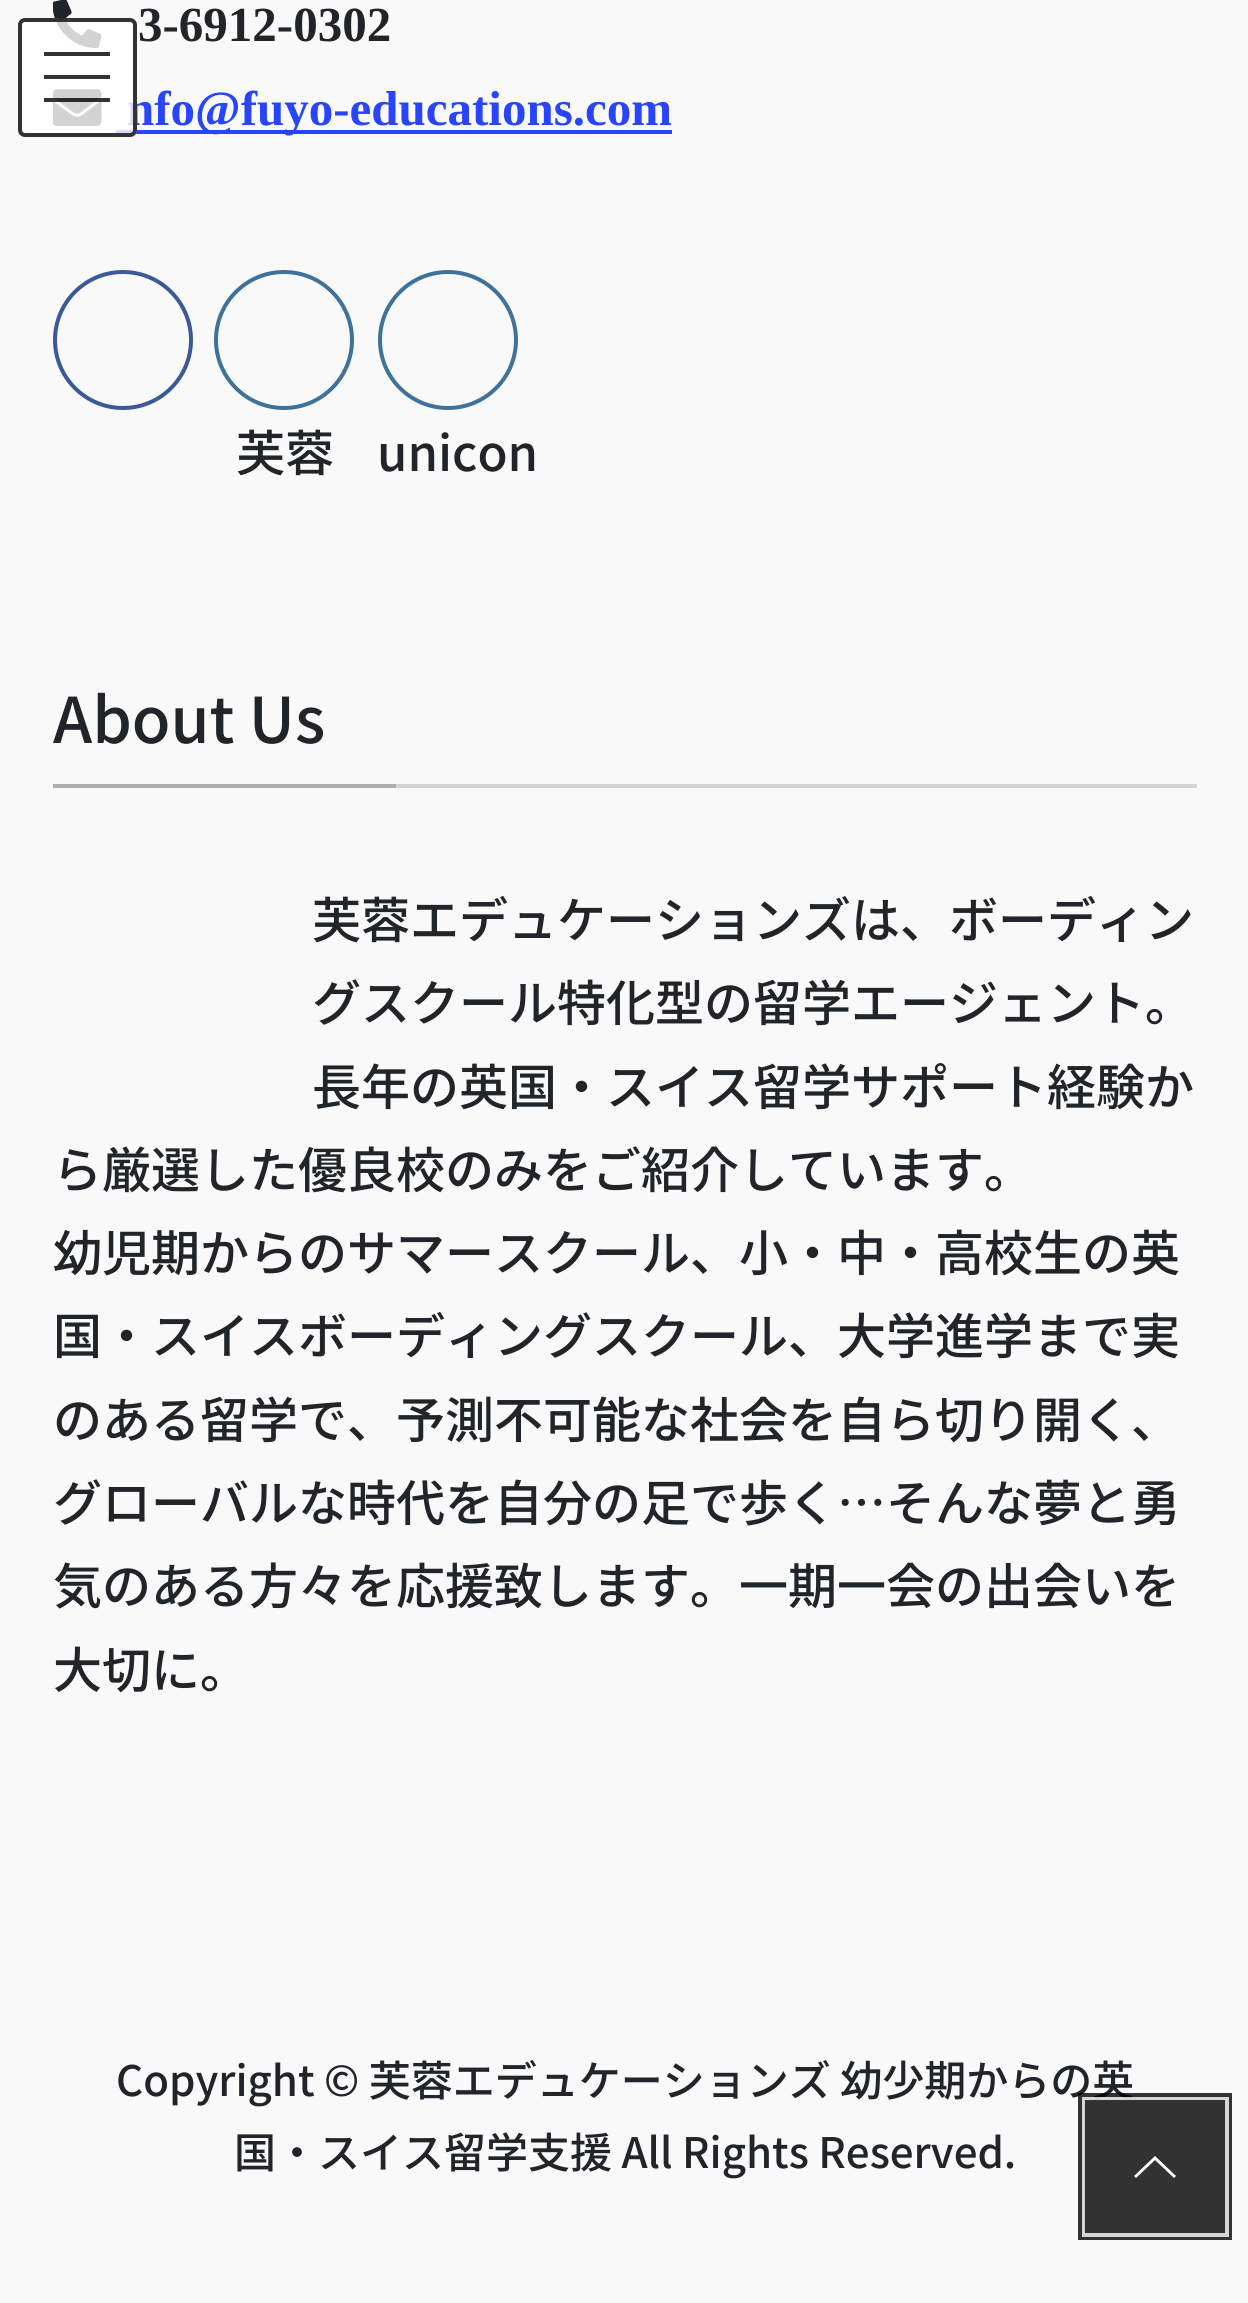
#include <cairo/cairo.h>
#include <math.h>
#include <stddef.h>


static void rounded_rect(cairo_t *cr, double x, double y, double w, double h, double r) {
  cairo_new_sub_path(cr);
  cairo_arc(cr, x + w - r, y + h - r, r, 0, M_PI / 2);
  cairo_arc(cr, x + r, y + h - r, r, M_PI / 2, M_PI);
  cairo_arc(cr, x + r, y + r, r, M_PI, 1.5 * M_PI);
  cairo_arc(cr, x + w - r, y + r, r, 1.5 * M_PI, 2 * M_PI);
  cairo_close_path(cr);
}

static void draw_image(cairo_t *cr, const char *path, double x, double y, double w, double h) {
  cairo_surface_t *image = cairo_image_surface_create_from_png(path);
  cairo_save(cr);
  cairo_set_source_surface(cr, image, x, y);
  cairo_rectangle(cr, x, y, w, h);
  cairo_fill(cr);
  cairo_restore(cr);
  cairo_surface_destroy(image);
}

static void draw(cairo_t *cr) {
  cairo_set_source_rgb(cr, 249 / 255.0, 249 / 255.0, 249 / 255.0);
  cairo_paint(cr);
  draw_image(cr, "images/1.png", 53, 0, 49, 49);
  draw_image(cr, "images/2.png", 53, 89, 49, 37);
  cairo_set_source_rgb(cr, 40 / 255.0, 68 / 255.0, 252 / 255.0);
  cairo_rectangle(cr, 116, 130, 556, 4);
  cairo_fill(cr);
  cairo_arc(cr, 123, 340, 68, 0, 2 * M_PI);
  cairo_set_source_rgb(cr, 59 / 255.0, 89 / 255.0, 152 / 255.0);
  cairo_set_line_width(cr, 4);
  cairo_stroke(cr);
  cairo_arc(cr, 284, 340, 68, 0, 2 * M_PI);
  cairo_set_source_rgb(cr, 63 / 255.0, 114 / 255.0, 155 / 255.0);
  cairo_stroke(cr);
  cairo_arc(cr, 448, 340, 68, 0, 2 * M_PI);
  cairo_stroke(cr);
  cairo_set_source_rgb(cr, 212 / 255.0, 212 / 255.0, 212 / 255.0);
  cairo_rectangle(cr, 396, 784, 801, 4);
  cairo_fill(cr);
  cairo_set_source_rgb(cr, 175 / 255.0, 175 / 255.0, 175 / 255.0);
  cairo_rectangle(cr, 53, 784, 343, 4);
  cairo_fill(cr);
  cairo_select_font_face(cr, "Liberation Serif", CAIRO_FONT_SLANT_NORMAL, CAIRO_FONT_WEIGHT_BOLD);
  cairo_set_font_size(cr, 49);
  cairo_set_source_rgb(cr, 33 / 255.0, 37 / 255.0, 41 / 255.0);
  cairo_move_to(cr, 138, 41);
  cairo_show_text(cr, "3-6912-0302");
  cairo_set_source_rgb(cr, 40 / 255.0, 68 / 255.0, 252 / 255.0);
  cairo_move_to(cr, 127, 125);
  cairo_show_text(cr, "nfo@fuyo-educations.com");
  cairo_select_font_face(cr, "Noto Sans JP Thin", CAIRO_FONT_SLANT_NORMAL, CAIRO_FONT_WEIGHT_NORMAL);
  cairo_set_source_rgb(cr, 33 / 255.0, 37 / 255.0, 41 / 255.0);
  cairo_move_to(cr, 236, 471);
  cairo_show_text(cr, "芙蓉");
  cairo_move_to(cr, 377, 471);
  cairo_show_text(cr, "unicon");
  cairo_set_font_size(cr, 63);
  cairo_move_to(cr, 53, 743);
  cairo_show_text(cr, "About Us");
  cairo_set_font_size(cr, 49);
  cairo_move_to(cr, 312, 938);
  cairo_show_text(cr, "芙蓉エデュケーションズは、ボーディン");
  cairo_move_to(cr, 312, 1021);
  cairo_show_text(cr, "グスクール特化型の留学エージェント。");
  cairo_move_to(cr, 312, 1105);
  cairo_show_text(cr, "長年の英国・スイス留学サポート経験か");
  cairo_move_to(cr, 53, 1188);
  cairo_show_text(cr, "ら厳選した優良校のみをご紹介しています。");
  cairo_move_to(cr, 53, 1271);
  cairo_show_text(cr, "幼児期からのサマースクール、小・中・高校生の英");
  cairo_move_to(cr, 53, 1354);
  cairo_show_text(cr, "国・スイスボーディングスクール、大学進学まで実");
  cairo_move_to(cr, 53, 1438);
  cairo_show_text(cr, "のある留学で、予測不可能な社会を自ら切り開く、");
  cairo_move_to(cr, 53, 1521);
  cairo_show_text(cr, "グローバルな時代を自分の足で歩く…そんな夢と勇");
  cairo_move_to(cr, 53, 1604);
  cairo_show_text(cr, "気のある方々を応援致します。一期一会の出会いを");
  cairo_move_to(cr, 53, 1688);
  cairo_show_text(cr, "大切に。");
  cairo_set_font_size(cr, 42);
  cairo_move_to(cr, 116, 2096);
  cairo_show_text(cr, "Copyright © 芙蓉エデュケーションズ 幼少期からの英");
  cairo_move_to(cr, 234, 2168);
  cairo_show_text(cr, "国・スイス留学支援 All Rights Reserved.");
  cairo_set_source_rgba(cr, 1, 1, 1, 0.8);
  rounded_rect(cr, 18, 18, 119, 119, 7);
  cairo_fill(cr);
  cairo_set_source_rgb(cr, 51 / 255.0, 51 / 255.0, 51 / 255.0);
  cairo_rectangle(cr, 44, 52, 66, 4);
  cairo_fill(cr);
  cairo_rectangle(cr, 44, 75, 66, 4);
  cairo_fill(cr);
  cairo_set_source_rgba(cr, 0, 0, 0, 0.8);
  cairo_rectangle(cr, 44, 98, 66, 4);
  cairo_fill(cr);
  rounded_rect(cr, 20, 20, 115, 115, 5);
  cairo_set_source_rgb(cr, 51 / 255.0, 51 / 255.0, 51 / 255.0);
  cairo_stroke(cr);
  cairo_rectangle(cr, 1081.5, 2096.5, 147, 140);
  cairo_set_source_rgba(cr, 0, 0, 0, 0.8);
  cairo_set_line_width(cr, 7);
  cairo_stroke(cr);
  cairo_rectangle(cr, 1084, 2099, 143, 136);
  cairo_set_source_rgba(cr, 1, 1, 1, 0.8);
  cairo_set_line_width(cr, 4);
  cairo_stroke(cr);
  cairo_set_source_rgba(cr, 0, 0, 0, 0.8);
  cairo_rectangle(cr, 1085, 2100, 140, 133);
  cairo_fill(cr);
  cairo_set_source_rgb(cr, 1, 1, 1);
  cairo_new_path(cr);
  cairo_move_to(cr, 1176, 2176);
  cairo_line_to(cr, 1174, 2178);
  cairo_line_to(cr, 1155, 2160);
  cairo_line_to(cr, 1136, 2178);
  cairo_line_to(cr, 1134, 2176);
  cairo_line_to(cr, 1155, 2156);
  cairo_close_path(cr);
  cairo_fill(cr);
}

int main(void) {
  cairo_surface_t *surface = cairo_image_surface_create(CAIRO_FORMAT_RGB24, 1248, 2303);
  cairo_t *cr = cairo_create(surface);
  cairo_font_options_t *options = cairo_font_options_create();
  cairo_font_options_set_hint_metrics(options, CAIRO_HINT_METRICS_OFF);
  cairo_font_options_set_hint_style(options, CAIRO_HINT_STYLE_NONE);
  cairo_set_font_options(cr, options);
  cairo_set_miter_limit(cr, 4);
  draw(cr);
  cairo_surface_write_to_png(surface, "out.png");
  cairo_font_options_destroy(options);
  cairo_destroy(cr);
  cairo_surface_destroy(surface);
  return 0;
}
